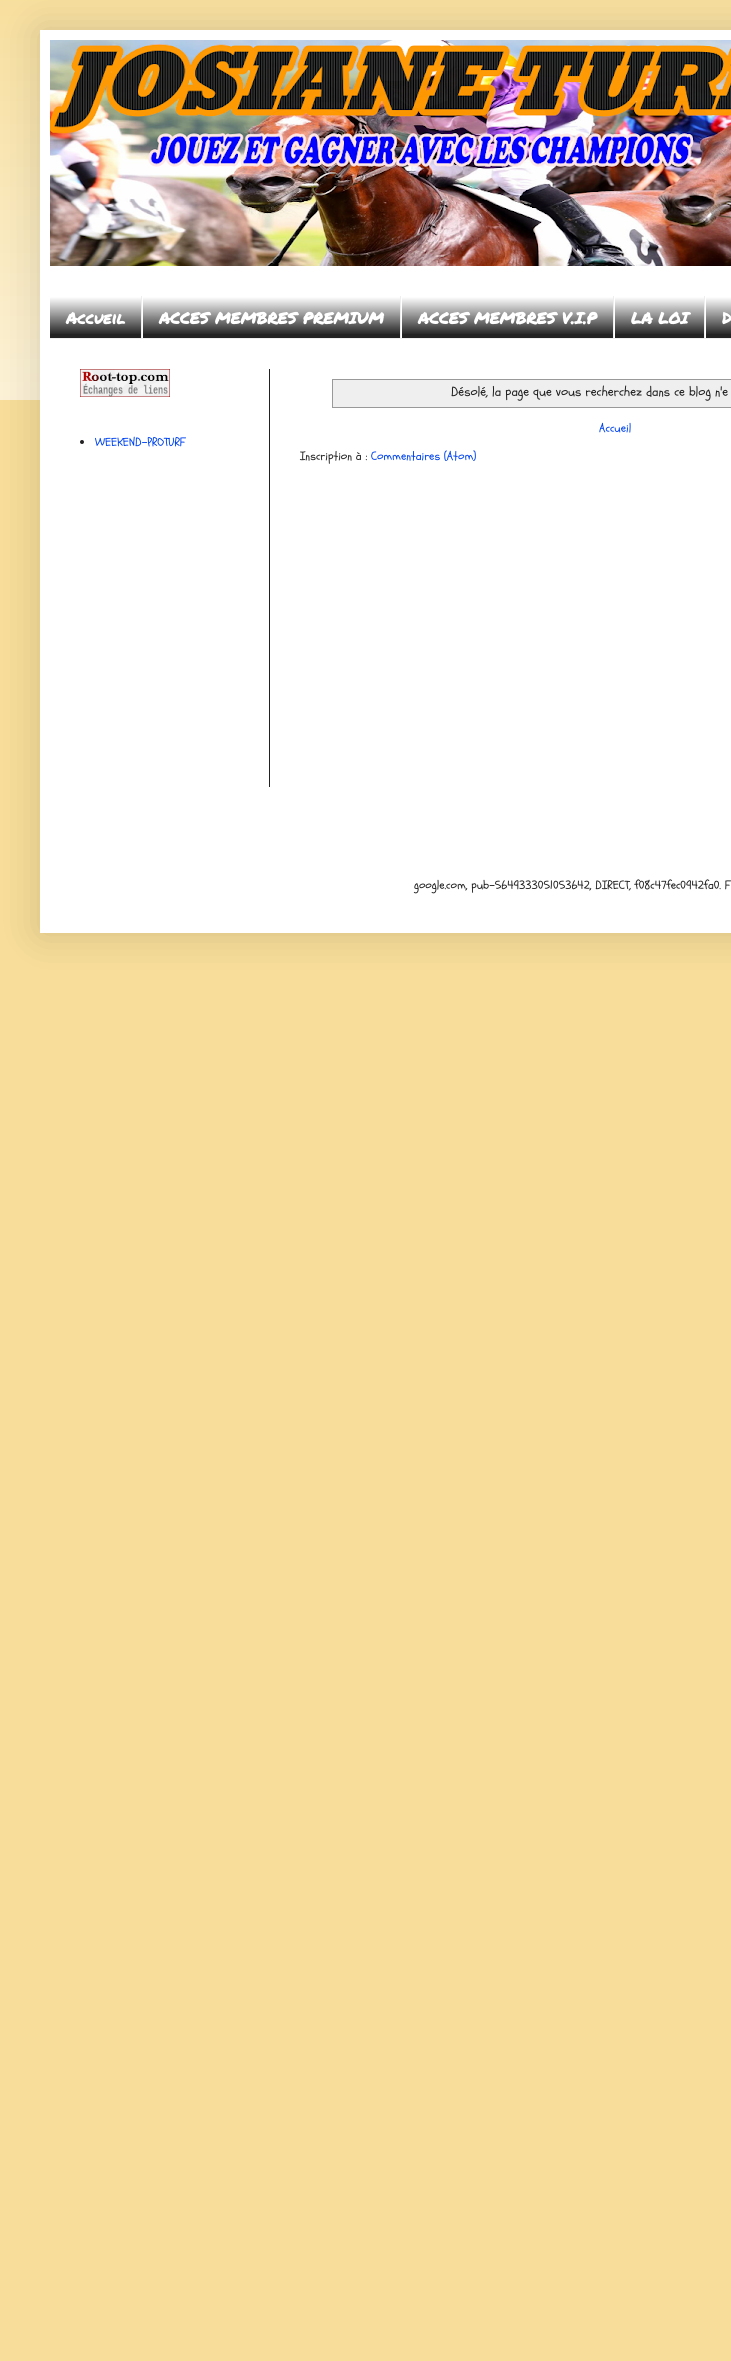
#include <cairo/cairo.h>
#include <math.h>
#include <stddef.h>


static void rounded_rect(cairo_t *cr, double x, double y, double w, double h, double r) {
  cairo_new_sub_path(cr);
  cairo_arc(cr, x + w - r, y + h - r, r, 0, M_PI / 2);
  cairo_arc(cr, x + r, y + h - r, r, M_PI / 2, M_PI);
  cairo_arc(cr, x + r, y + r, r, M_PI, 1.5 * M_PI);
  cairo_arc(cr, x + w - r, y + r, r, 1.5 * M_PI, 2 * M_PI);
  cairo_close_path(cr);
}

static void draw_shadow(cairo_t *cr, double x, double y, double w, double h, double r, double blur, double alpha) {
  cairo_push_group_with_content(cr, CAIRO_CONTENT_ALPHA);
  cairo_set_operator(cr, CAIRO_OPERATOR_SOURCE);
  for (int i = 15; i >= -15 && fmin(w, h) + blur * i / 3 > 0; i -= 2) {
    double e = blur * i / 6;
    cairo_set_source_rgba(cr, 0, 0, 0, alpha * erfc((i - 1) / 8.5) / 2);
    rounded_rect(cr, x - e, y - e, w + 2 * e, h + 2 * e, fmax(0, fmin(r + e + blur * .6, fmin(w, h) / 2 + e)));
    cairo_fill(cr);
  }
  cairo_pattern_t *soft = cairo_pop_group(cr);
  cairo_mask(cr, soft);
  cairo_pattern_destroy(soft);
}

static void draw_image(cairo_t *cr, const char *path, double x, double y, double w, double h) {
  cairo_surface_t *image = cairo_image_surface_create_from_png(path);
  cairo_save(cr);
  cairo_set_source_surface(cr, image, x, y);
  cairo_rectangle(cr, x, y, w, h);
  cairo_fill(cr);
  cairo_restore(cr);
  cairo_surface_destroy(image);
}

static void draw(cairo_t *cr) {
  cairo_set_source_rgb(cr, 247 / 255.0, 221 / 255.0, 153 / 255.0);
  cairo_paint(cr);
  draw_image(cr, "images/1.png", 0, 0, 731, 400);
  cairo_set_source_rgb(cr, 0, 0, 0);
  draw_shadow(cr, 40, 30, 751, 903, 0, 20, 0.15);
  cairo_set_source_rgb(cr, 1, 1, 1);
  cairo_rectangle(cr, 40, 30, 691, 903);
  cairo_fill(cr);
  draw_image(cr, "images/2.png", 50, 40, 681, 226);
  cairo_set_source_rgb(cr, 34 / 255.0, 34 / 255.0, 34 / 255.0);
  cairo_rectangle(cr, 50, 297, 681, 41);
  cairo_fill(cr);
  draw_image(cr, "images/3.png", 50, 296, 681, 38);
  cairo_set_source_rgb(cr, 238 / 255.0, 238 / 255.0, 238 / 255.0);
  cairo_rectangle(cr, 50, 338, 681, 1);
  cairo_fill(cr);
  cairo_rectangle(cr, 141, 296, 1, 42);
  cairo_fill(cr);
  cairo_rectangle(cr, 400, 296, 1, 42);
  cairo_fill(cr);
  cairo_set_source_rgb(cr, 1, 1, 1);
  cairo_rectangle(cr, 142, 296, 1, 42);
  cairo_fill(cr);
  cairo_set_source_rgb(cr, 238 / 255.0, 238 / 255.0, 238 / 255.0);
  cairo_rectangle(cr, 613, 296, 1, 42);
  cairo_fill(cr);
  cairo_set_source_rgb(cr, 1, 1, 1);
  cairo_rectangle(cr, 401, 296, 1, 42);
  cairo_fill(cr);
  cairo_set_source_rgb(cr, 238 / 255.0, 238 / 255.0, 238 / 255.0);
  cairo_rectangle(cr, 704, 296, 1, 42);
  cairo_fill(cr);
  cairo_set_source_rgb(cr, 1, 1, 1);
  cairo_rectangle(cr, 614, 296, 1, 42);
  cairo_fill(cr);
  cairo_rectangle(cr, 705, 296, 1, 42);
  cairo_fill(cr);
  cairo_set_source_rgb(cr, 34 / 255.0, 34 / 255.0, 34 / 255.0);
  cairo_rectangle(cr, 269, 369, 1, 418);
  cairo_fill(cr);
  draw_image(cr, "images/4.png", 80, 369, 90, 28);
  cairo_arc(cr, 82, 442, 2, 0, 2 * M_PI);
  cairo_fill(cr);
  cairo_rectangle(cr, 332.5, 379.5, 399, 28);
  cairo_set_source_rgb(cr, 153 / 255.0, 153 / 255.0, 153 / 255.0);
  cairo_set_line_width(cr, 1);
  cairo_stroke(cr);
  cairo_set_source_rgb(cr, 239 / 255.0, 239 / 255.0, 239 / 255.0);
  cairo_rectangle(cr, 333, 380, 398, 27);
  cairo_fill(cr);
  cairo_select_font_face(cr, "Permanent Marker", CAIRO_FONT_SLANT_NORMAL, CAIRO_FONT_WEIGHT_BOLD);
  cairo_set_font_size(cr, 16);
  cairo_set_source_rgb(cr, 1, 1, 1);
  cairo_move_to(cr, 66, 324);
  cairo_show_text(cr, "Accueil");
  cairo_move_to(cr, 159, 324);
  cairo_show_text(cr, "ACCES MEMBRES PREMIUM");
  cairo_move_to(cr, 418, 324);
  cairo_show_text(cr, "ACCES MEMBRES V.I.P");
  cairo_move_to(cr, 631, 324);
  cairo_show_text(cr, "LA LOI");
  cairo_move_to(cr, 722, 324);
  cairo_show_text(cr, "D");
  cairo_select_font_face(cr, "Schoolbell", CAIRO_FONT_SLANT_NORMAL, CAIRO_FONT_WEIGHT_NORMAL);
  cairo_set_font_size(cr, 12);
  cairo_set_source_rgb(cr, 0, 67 / 255.0, 238 / 255.0);
  cairo_move_to(cr, 95, 446);
  cairo_show_text(cr, "WEEKEND-PROTURF");
  cairo_set_font_size(cr, 13.2);
  cairo_set_source_rgb(cr, 34 / 255.0, 34 / 255.0, 34 / 255.0);
  cairo_move_to(cr, 451, 396);
  cairo_show_text(cr, "Désolé, la page que vous recherchez dans ce blog n'e");
  cairo_set_font_size(cr, 12);
  cairo_set_source_rgb(cr, 0, 67 / 255.0, 238 / 255.0);
  cairo_move_to(cr, 599, 432);
  cairo_show_text(cr, "Accueil");
  cairo_set_source_rgb(cr, 34 / 255.0, 34 / 255.0, 34 / 255.0);
  cairo_move_to(cr, 300, 460);
  cairo_show_text(cr, "Inscription à :");
  cairo_set_source_rgb(cr, 0, 67 / 255.0, 238 / 255.0);
  cairo_move_to(cr, 371, 460);
  cairo_show_text(cr, "Commentaires (Atom)");
  cairo_set_source_rgb(cr, 34 / 255.0, 34 / 255.0, 34 / 255.0);
  cairo_move_to(cr, 414, 889);
  cairo_show_text(cr, "google.com, pub-5649333051053642, DIRECT, f08c47fec0942fa0. F");
}

int main(void) {
  cairo_surface_t *surface = cairo_image_surface_create(CAIRO_FORMAT_RGB24, 731, 2361);
  cairo_t *cr = cairo_create(surface);
  cairo_font_options_t *options = cairo_font_options_create();
  cairo_font_options_set_hint_metrics(options, CAIRO_HINT_METRICS_OFF);
  cairo_font_options_set_hint_style(options, CAIRO_HINT_STYLE_NONE);
  cairo_set_font_options(cr, options);
  cairo_set_miter_limit(cr, 4);
  draw(cr);
  cairo_surface_write_to_png(surface, "out.png");
  cairo_font_options_destroy(options);
  cairo_destroy(cr);
  cairo_surface_destroy(surface);
  return 0;
}
